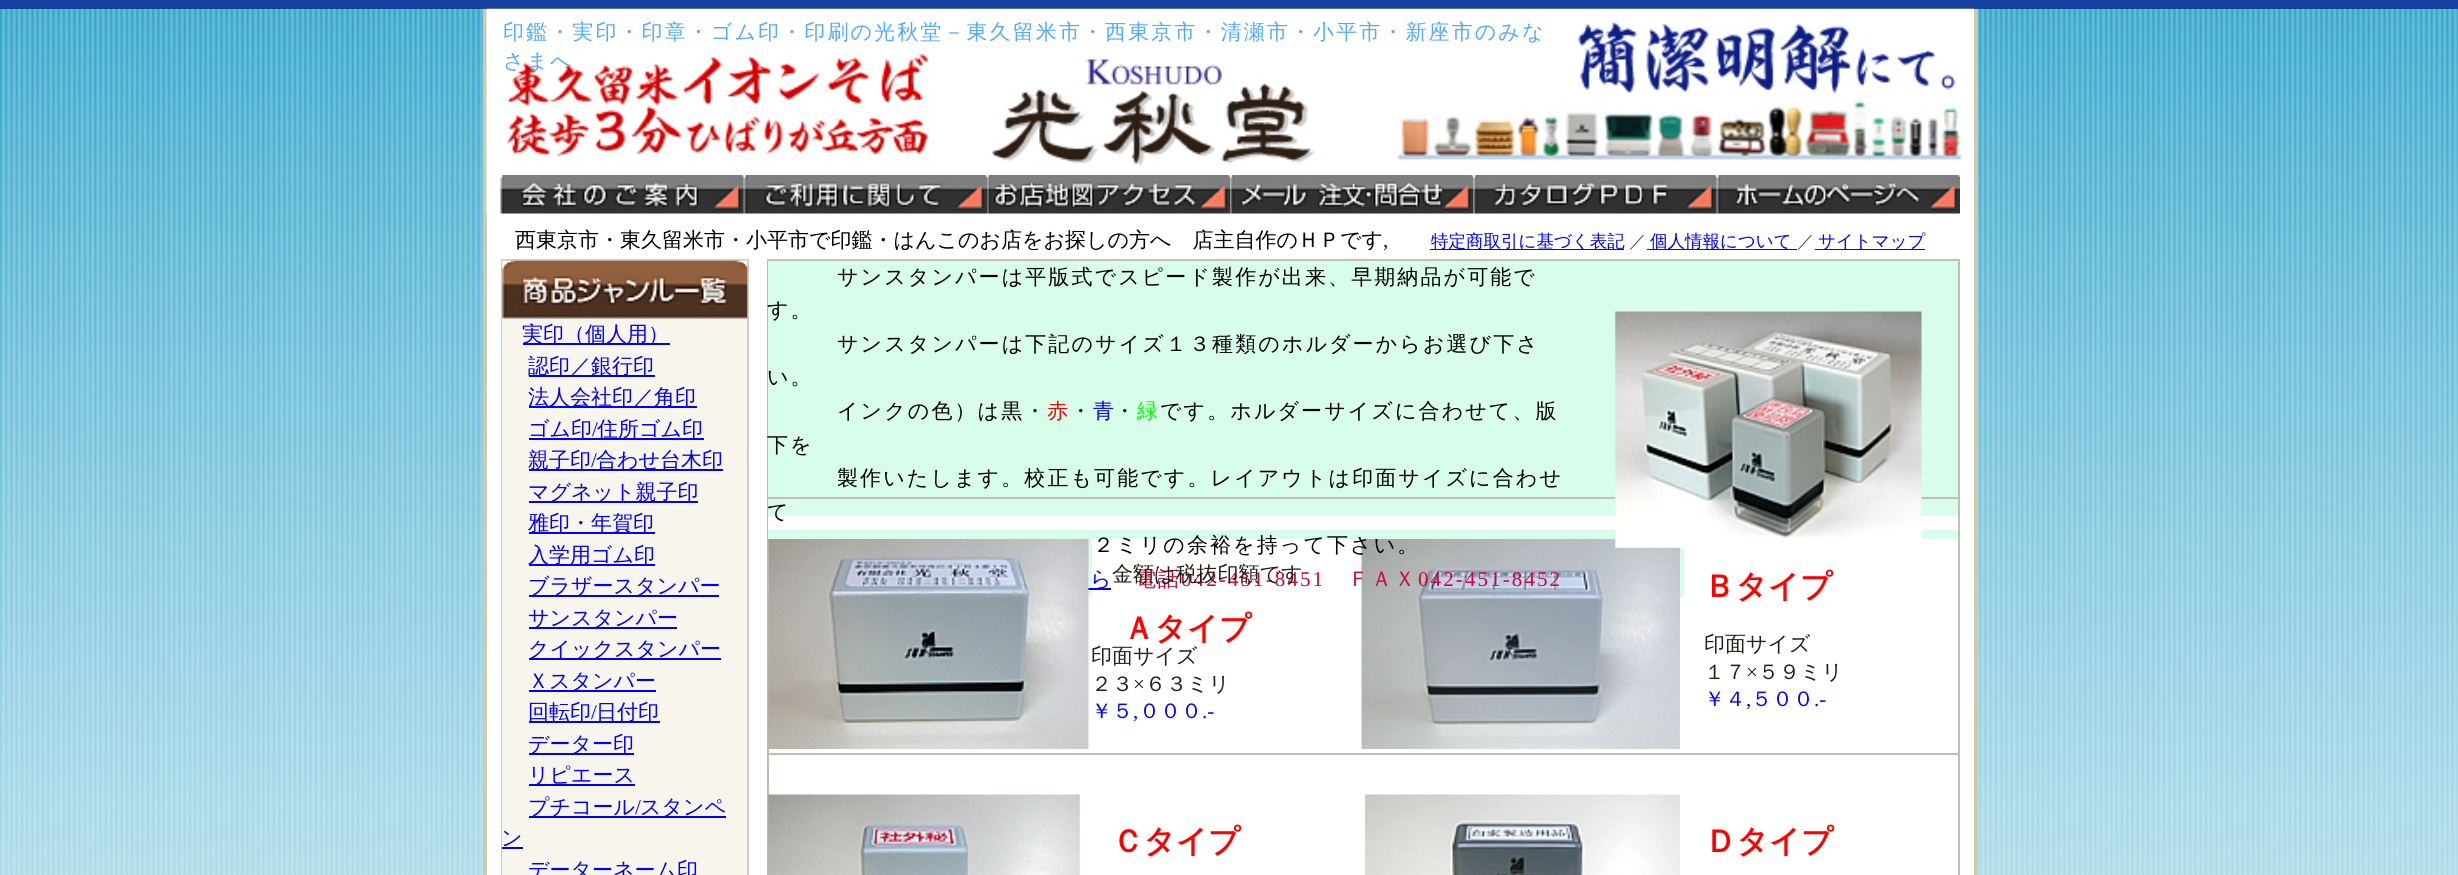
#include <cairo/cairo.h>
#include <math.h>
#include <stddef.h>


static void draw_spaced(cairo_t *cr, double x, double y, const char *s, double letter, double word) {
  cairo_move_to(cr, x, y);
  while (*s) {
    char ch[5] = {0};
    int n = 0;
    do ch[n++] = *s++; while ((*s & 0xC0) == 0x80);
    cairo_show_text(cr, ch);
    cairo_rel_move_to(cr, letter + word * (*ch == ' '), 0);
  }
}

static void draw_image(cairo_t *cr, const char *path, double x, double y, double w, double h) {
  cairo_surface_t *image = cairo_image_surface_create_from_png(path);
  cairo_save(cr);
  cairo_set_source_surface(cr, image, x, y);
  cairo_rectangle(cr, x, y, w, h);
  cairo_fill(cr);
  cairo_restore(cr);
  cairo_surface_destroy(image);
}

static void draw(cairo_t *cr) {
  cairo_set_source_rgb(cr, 1, 1, 1);
  cairo_paint(cr);
  draw_image(cr, "images/1.png", 0, 9, 2458, 866);
  cairo_set_source_rgb(cr, 22 / 255.0, 64 / 255.0, 160 / 255.0);
  cairo_rectangle(cr, 0, 0, 2458, 9);
  cairo_fill(cr);
  cairo_set_source_rgb(cr, 1, 1, 1);
  cairo_rectangle(cr, 487, 175, 1487, 75);
  cairo_fill(cr);
  cairo_set_source_rgb(cr, 207 / 255.0, 201 / 255.0, 173 / 255.0);
  cairo_rectangle(cr, 1974, 9, 4, 866);
  cairo_fill(cr);
  cairo_rectangle(cr, 483, 9, 4, 866);
  cairo_fill(cr);
  draw_image(cr, "images/2.png", 486, 8, 1488, 167);
  draw_image(cr, "images/3.png", 486, 175, 1, 39);
  draw_image(cr, "images/4.png", 500, 175, 244, 39);
  draw_image(cr, "images/5.png", 743, 175, 244, 39);
  draw_image(cr, "images/6.png", 987, 175, 244, 39);
  draw_image(cr, "images/7.png", 1230, 175, 244, 39);
  draw_image(cr, "images/8.png", 1473, 175, 244, 39);
  draw_image(cr, "images/9.png", 1716, 175, 244, 39);
  cairo_set_source_rgb(cr, 0, 0, 1);
  cairo_rectangle(cr, 1430, 249, 194, 1);
  cairo_fill(cr);
  cairo_rectangle(cr, 1647, 249, 150, 1);
  cairo_fill(cr);
  cairo_rectangle(cr, 1815, 249, 110, 1);
  cairo_fill(cr);
  cairo_select_font_face(cr, "WenQuanYi Zen Hei Medium", CAIRO_FONT_SLANT_NORMAL, CAIRO_FONT_WEIGHT_NORMAL);
  cairo_set_font_size(cr, 21);
  cairo_set_source_rgb(cr, 83 / 255.0, 169 / 255.0, 1);
  draw_spaced(cr, 503, 39, "印鑑・実印・印章・ゴム印・印刷の光秋堂－東久留米市・西東京市・清瀬市・小平市・新座市のみな", 2.1, 0);
  draw_spaced(cr, 503, 68, "さまへ", 2.1, 0);
  cairo_set_source_rgb(cr, 0, 0, 0);
  cairo_move_to(cr, 515, 247);
  cairo_show_text(cr, "西東京市・東久留米市・小平市で印鑑・はんこのお店をお探しの方へ　店主自作のＨＰです");
  cairo_select_font_face(cr, "Liberation Serif", CAIRO_FONT_SLANT_NORMAL, CAIRO_FONT_WEIGHT_NORMAL);
  cairo_set_source_rgb(cr, 0, 0, 210 / 255.0);
  cairo_move_to(cr, 1383, 247);
  cairo_show_text(cr, ",");
  cairo_select_font_face(cr, "WenQuanYi Zen Hei Medium", CAIRO_FONT_SLANT_NORMAL, CAIRO_FONT_WEIGHT_NORMAL);
  cairo_set_font_size(cr, 17.5);
  cairo_set_source_rgb(cr, 0, 0, 1);
  cairo_move_to(cr, 1431, 247);
  cairo_show_text(cr, "特定商取引に基づく表記");
  cairo_set_source_rgb(cr, 113 / 255.0, 66 / 255.0, 40 / 255.0);
  cairo_move_to(cr, 1629, 247);
  cairo_show_text(cr, "／");
  cairo_set_source_rgb(cr, 0, 0, 1);
  cairo_move_to(cr, 1650, 247);
  cairo_show_text(cr, "個人情報について");
  cairo_set_source_rgb(cr, 113 / 255.0, 66 / 255.0, 40 / 255.0);
  cairo_move_to(cr, 1797, 247);
  cairo_show_text(cr, "／");
  cairo_set_source_rgb(cr, 0, 0, 1);
  cairo_move_to(cr, 1818, 247);
  cairo_show_text(cr, "サイトマップ");
  cairo_set_source_rgb(cr, 1, 1, 1);
  cairo_rectangle(cr, 487, 250, 1487, 625);
  cairo_fill(cr);
  cairo_set_source_rgb(cr, 208 / 255.0, 207 / 255.0, 198 / 255.0);
  cairo_rectangle(cr, 501, 259, 248, 2);
  cairo_fill(cr);
  cairo_set_source_rgb(cr, 206 / 255.0, 203 / 255.0, 198 / 255.0);
  cairo_rectangle(cr, 747, 259, 2, 616);
  cairo_fill(cr);
  cairo_rectangle(cr, 501, 259, 2, 616);
  cairo_fill(cr);
  cairo_set_source_rgb(cr, 248 / 255.0, 245 / 255.0, 237 / 255.0);
  cairo_rectangle(cr, 502, 261, 245, 614);
  cairo_fill(cr);
  draw_image(cr, "images/10.png", 502, 260, 246, 59);
  cairo_set_source_rgb(cr, 0, 0, 1);
  cairo_rectangle(cr, 523, 343, 147, 2);
  cairo_fill(cr);
  cairo_set_font_size(cr, 21);
  cairo_move_to(cr, 522, 341);
  cairo_show_text(cr, "実印（個人用）");
  cairo_rectangle(cr, 529, 375, 126, 2);
  cairo_fill(cr);
  cairo_move_to(cr, 528, 373);
  cairo_show_text(cr, "認印／銀行印");
  cairo_rectangle(cr, 529, 406, 168, 2);
  cairo_fill(cr);
  cairo_move_to(cr, 528, 404);
  cairo_show_text(cr, "法人会社印／角印");
  cairo_select_font_face(cr, "Liberation Serif", CAIRO_FONT_SLANT_NORMAL, CAIRO_FONT_WEIGHT_NORMAL);
  cairo_move_to(cr, 592, 436);
  cairo_show_text(cr, "/");
  cairo_rectangle(cr, 529, 438, 175, 2);
  cairo_fill(cr);
  cairo_select_font_face(cr, "WenQuanYi Zen Hei Medium", CAIRO_FONT_SLANT_NORMAL, CAIRO_FONT_WEIGHT_NORMAL);
  cairo_move_to(cr, 528, 436);
  cairo_show_text(cr, "ゴム印");
  cairo_move_to(cr, 597, 436);
  cairo_show_text(cr, "住所ゴム印");
  cairo_select_font_face(cr, "Liberation Serif", CAIRO_FONT_SLANT_NORMAL, CAIRO_FONT_WEIGHT_NORMAL);
  cairo_move_to(cr, 591, 467);
  cairo_show_text(cr, "/");
  cairo_rectangle(cr, 529, 469, 194, 2);
  cairo_fill(cr);
  cairo_select_font_face(cr, "WenQuanYi Zen Hei Medium", CAIRO_FONT_SLANT_NORMAL, CAIRO_FONT_WEIGHT_NORMAL);
  cairo_move_to(cr, 528, 467);
  cairo_show_text(cr, "親子印");
  cairo_move_to(cr, 596, 467);
  cairo_show_text(cr, "合わせ台木印");
  cairo_rectangle(cr, 529, 501, 169, 2);
  cairo_fill(cr);
  cairo_move_to(cr, 528, 499);
  cairo_show_text(cr, "マグネット親子印");
  cairo_rectangle(cr, 529, 532, 126, 2);
  cairo_fill(cr);
  cairo_move_to(cr, 528, 530);
  cairo_show_text(cr, "雅印・年賀印");
  cairo_rectangle(cr, 529, 564, 126, 2);
  cairo_fill(cr);
  cairo_move_to(cr, 528, 562);
  cairo_show_text(cr, "入学用ゴム印");
  cairo_rectangle(cr, 529, 595, 190, 2);
  cairo_fill(cr);
  cairo_move_to(cr, 528, 593);
  cairo_show_text(cr, "ブラザースタンパー");
  cairo_rectangle(cr, 529, 627, 148, 2);
  cairo_fill(cr);
  cairo_move_to(cr, 528, 625);
  cairo_show_text(cr, "サンスタンパー");
  cairo_rectangle(cr, 529, 658, 192, 2);
  cairo_fill(cr);
  cairo_move_to(cr, 528, 656);
  cairo_show_text(cr, "クイックスタンパー");
  cairo_rectangle(cr, 529, 690, 127, 2);
  cairo_fill(cr);
  cairo_move_to(cr, 528, 688);
  cairo_show_text(cr, "Ｘスタンパー");
  cairo_select_font_face(cr, "Liberation Serif", CAIRO_FONT_SLANT_NORMAL, CAIRO_FONT_WEIGHT_NORMAL);
  cairo_move_to(cr, 591, 719);
  cairo_show_text(cr, "/");
  cairo_rectangle(cr, 529, 721, 131, 2);
  cairo_fill(cr);
  cairo_select_font_face(cr, "WenQuanYi Zen Hei Medium", CAIRO_FONT_SLANT_NORMAL, CAIRO_FONT_WEIGHT_NORMAL);
  cairo_move_to(cr, 528, 719);
  cairo_show_text(cr, "回転印");
  cairo_move_to(cr, 596, 719);
  cairo_show_text(cr, "日付印");
  cairo_rectangle(cr, 529, 753, 105, 2);
  cairo_fill(cr);
  cairo_move_to(cr, 528, 751);
  cairo_show_text(cr, "データー印");
  cairo_rectangle(cr, 529, 784, 106, 2);
  cairo_fill(cr);
  cairo_move_to(cr, 528, 782);
  cairo_show_text(cr, "リピエース");
  cairo_select_font_face(cr, "Liberation Serif", CAIRO_FONT_SLANT_NORMAL, CAIRO_FONT_WEIGHT_NORMAL);
  cairo_move_to(cr, 635, 814);
  cairo_show_text(cr, "/");
  cairo_rectangle(cr, 529, 816, 197, 2);
  cairo_fill(cr);
  cairo_select_font_face(cr, "WenQuanYi Zen Hei Medium", CAIRO_FONT_SLANT_NORMAL, CAIRO_FONT_WEIGHT_NORMAL);
  cairo_move_to(cr, 640, 814);
  cairo_show_text(cr, "スタンペ");
  cairo_move_to(cr, 528, 814);
  cairo_show_text(cr, "プチコール");
  cairo_move_to(cr, 501, 845);
  cairo_show_text(cr, "ン");
  cairo_rectangle(cr, 502, 847, 21, 2);
  cairo_fill(cr);
  cairo_move_to(cr, 528, 877);
  cairo_show_text(cr, "データーネーム印");
  cairo_rectangle(cr, 768, 260, 1191, 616);
  cairo_set_source_rgb(cr, 194 / 255.0, 190 / 255.0, 177 / 255.0);
  cairo_stroke(cr);
  cairo_set_source_rgb(cr, 217 / 255.0, 253 / 255.0, 235 / 255.0);
  cairo_rectangle(cr, 768, 261, 1190, 336);
  cairo_fill(cr);
  cairo_set_source_rgb(cr, 0, 0, 0);
  draw_spaced(cr, 837, 284, "サンスタンパーは平版式でスピード製作が出来、早期納品が可能で", 2.1, 0);
  draw_spaced(cr, 767, 317, "す。", 2.1, 0);
  draw_spaced(cr, 837, 351, "サンスタンパーは下記のサイズ１３種類のホルダーからお選び下さ", 2.1, 0);
  draw_spaced(cr, 767, 384, "い。", 2.1, 0);
  draw_spaced(cr, 837, 418, "インクの色）は黒・", 2.1, 0);
  cairo_set_source_rgb(cr, 1, 0, 0);
  draw_spaced(cr, 1047, 418, "赤", 2.1, 0);
  cairo_set_source_rgb(cr, 0, 0, 0);
  draw_spaced(cr, 1070, 418, "・", 2.1, 0);
  cairo_set_source_rgb(cr, 0, 0, 1);
  cairo_move_to(cr, 1093, 418);
  cairo_show_text(cr, "青");
  cairo_set_source_rgb(cr, 0, 0, 0);
  draw_spaced(cr, 1114, 418, "・", 2.1, 0);
  cairo_set_source_rgb(cr, 0, 1, 0);
  draw_spaced(cr, 1137, 418, "緑", 2.1, 0);
  cairo_set_source_rgb(cr, 0, 0, 0);
  draw_spaced(cr, 1160, 418, "です。ホルダーサイズに合わせて、版", 2.1, 0);
  draw_spaced(cr, 767, 452, "下を", 2.1, 0);
  draw_spaced(cr, 837, 485, "製作いたします。校正も可能です。レイアウトは印面サイズに合わせ", 2.1, 0);
  cairo_set_source_rgb(cr, 194 / 255.0, 190 / 255.0, 177 / 255.0);
  cairo_rectangle(cr, 768, 497, 1190, 2);
  cairo_fill(cr);
  cairo_set_source_rgb(cr, 1, 1, 1);
  cairo_rectangle(cr, 768, 516, 1190, 14);
  cairo_fill(cr);
  cairo_set_source_rgb(cr, 0, 0, 0);
  draw_spaced(cr, 767, 519, "て", 2.1, 0);
  cairo_set_source_rgb(cr, 1, 1, 1);
  cairo_rectangle(cr, 1092, 539, 270, 58);
  cairo_fill(cr);
  cairo_set_source_rgb(cr, 0, 0, 1);
  cairo_rectangle(cr, 1088, 588, 23, 2);
  cairo_fill(cr);
  draw_image(cr, "images/12.png", 768, 539, 321, 210);
  cairo_select_font_face(cr, "Liberation Serif", CAIRO_FONT_SLANT_NORMAL, CAIRO_FONT_WEIGHT_NORMAL);
  cairo_set_source_rgb(cr, 206 / 255.0, 4 / 255.0, 60 / 255.0);
  draw_spaced(cr, 1181, 586, "042-451-8451", 2.1, 0);
  cairo_select_font_face(cr, "WenQuanYi Zen Hei Medium", CAIRO_FONT_SLANT_NORMAL, CAIRO_FONT_WEIGHT_NORMAL);
  draw_spaced(cr, 1135, 586, "電話", 2.1, 0);
  cairo_set_source_rgb(cr, 0, 0, 1);
  cairo_move_to(cr, 1090, 586);
  cairo_show_text(cr, "ら");
  cairo_set_source_rgb(cr, 33 / 255.0, 31 / 255.0, 18 / 255.0);
  cairo_move_to(cr, 1112, 581);
  cairo_show_text(cr, "金額は税抜印額です");
  cairo_select_font_face(cr, "WenQuanYi Zen Hei", CAIRO_FONT_SLANT_NORMAL, CAIRO_FONT_WEIGHT_BOLD);
  cairo_set_font_size(cr, 31.5);
  cairo_set_source_rgb(cr, 1, 0, 0);
  cairo_move_to(cr, 1123, 639);
  cairo_show_text(cr, "Ａタイプ");
  cairo_select_font_face(cr, "WenQuanYi Zen Hei Medium", CAIRO_FONT_SLANT_NORMAL, CAIRO_FONT_WEIGHT_NORMAL);
  cairo_set_font_size(cr, 21);
  cairo_set_source_rgb(cr, 33 / 255.0, 31 / 255.0, 18 / 255.0);
  cairo_move_to(cr, 1091, 663);
  cairo_show_text(cr, "印面サイズ");
  cairo_move_to(cr, 1091, 691);
  cairo_show_text(cr, "２３");
  cairo_select_font_face(cr, "Liberation Serif", CAIRO_FONT_SLANT_NORMAL, CAIRO_FONT_WEIGHT_NORMAL);
  cairo_move_to(cr, 1133, 691);
  cairo_show_text(cr, "×");
  cairo_select_font_face(cr, "WenQuanYi Zen Hei Medium", CAIRO_FONT_SLANT_NORMAL, CAIRO_FONT_WEIGHT_NORMAL);
  cairo_move_to(cr, 1145, 691);
  cairo_show_text(cr, "６３ミリ");
  cairo_set_source_rgb(cr, 0, 0, 1);
  cairo_move_to(cr, 1091, 718);
  cairo_show_text(cr, "￥５");
  cairo_select_font_face(cr, "Liberation Serif", CAIRO_FONT_SLANT_NORMAL, CAIRO_FONT_WEIGHT_NORMAL);
  cairo_move_to(cr, 1133, 718);
  cairo_show_text(cr, ",");
  cairo_select_font_face(cr, "WenQuanYi Zen Hei Medium", CAIRO_FONT_SLANT_NORMAL, CAIRO_FONT_WEIGHT_NORMAL);
  cairo_move_to(cr, 1139, 718);
  cairo_show_text(cr, "０００");
  cairo_select_font_face(cr, "Liberation Serif", CAIRO_FONT_SLANT_NORMAL, CAIRO_FONT_WEIGHT_NORMAL);
  cairo_move_to(cr, 1202, 718);
  cairo_show_text(cr, ".-");
  draw_image(cr, "images/13.png", 1361, 539, 319, 210);
  cairo_set_source_rgb(cr, 206 / 255.0, 4 / 255.0, 60 / 255.0);
  draw_spaced(cr, 1418, 586, "042-451-8452", 2.1, 0);
  cairo_select_font_face(cr, "WenQuanYi Zen Hei Medium", CAIRO_FONT_SLANT_NORMAL, CAIRO_FONT_WEIGHT_NORMAL);
  draw_spaced(cr, 1348, 586, "ＦＡＸ", 2.1, 0);
  cairo_set_source_rgb(cr, 0, 0, 0);
  draw_spaced(cr, 1093, 552, "２ミリの余裕を持って下さい。", 2.1, 0);
  cairo_set_source_rgb(cr, 1, 1, 1);
  cairo_rectangle(cr, 1684, 539, 274, 58);
  cairo_fill(cr);
  draw_image(cr, "images/11.png", 1615, 311, 307, 237);
  cairo_select_font_face(cr, "WenQuanYi Zen Hei", CAIRO_FONT_SLANT_NORMAL, CAIRO_FONT_WEIGHT_BOLD);
  cairo_set_font_size(cr, 31.5);
  cairo_set_source_rgb(cr, 1, 0, 0);
  cairo_move_to(cr, 1704, 597);
  cairo_show_text(cr, "Ｂタイプ");
  cairo_select_font_face(cr, "WenQuanYi Zen Hei Medium", CAIRO_FONT_SLANT_NORMAL, CAIRO_FONT_WEIGHT_NORMAL);
  cairo_set_font_size(cr, 21);
  cairo_set_source_rgb(cr, 33 / 255.0, 31 / 255.0, 18 / 255.0);
  cairo_move_to(cr, 1704, 651);
  cairo_show_text(cr, "印面サイズ");
  cairo_move_to(cr, 1704, 679);
  cairo_show_text(cr, "１７");
  cairo_select_font_face(cr, "Liberation Serif", CAIRO_FONT_SLANT_NORMAL, CAIRO_FONT_WEIGHT_NORMAL);
  cairo_move_to(cr, 1746, 679);
  cairo_show_text(cr, "×");
  cairo_select_font_face(cr, "WenQuanYi Zen Hei Medium", CAIRO_FONT_SLANT_NORMAL, CAIRO_FONT_WEIGHT_NORMAL);
  cairo_move_to(cr, 1758, 679);
  cairo_show_text(cr, "５９ミリ");
  cairo_set_source_rgb(cr, 0, 0, 1);
  cairo_move_to(cr, 1704, 706);
  cairo_show_text(cr, "￥４");
  cairo_select_font_face(cr, "Liberation Serif", CAIRO_FONT_SLANT_NORMAL, CAIRO_FONT_WEIGHT_NORMAL);
  cairo_move_to(cr, 1746, 706);
  cairo_show_text(cr, ",");
  cairo_select_font_face(cr, "WenQuanYi Zen Hei Medium", CAIRO_FONT_SLANT_NORMAL, CAIRO_FONT_WEIGHT_NORMAL);
  cairo_move_to(cr, 1751, 706);
  cairo_show_text(cr, "５００");
  cairo_select_font_face(cr, "Liberation Serif", CAIRO_FONT_SLANT_NORMAL, CAIRO_FONT_WEIGHT_NORMAL);
  cairo_move_to(cr, 1814, 706);
  cairo_show_text(cr, ".-");
  cairo_set_source_rgb(cr, 194 / 255.0, 190 / 255.0, 177 / 255.0);
  cairo_rectangle(cr, 768, 753, 1190, 2);
  cairo_fill(cr);
  draw_image(cr, "images/14.png", 768, 794, 312, 81);
  cairo_select_font_face(cr, "WenQuanYi Zen Hei", CAIRO_FONT_SLANT_NORMAL, CAIRO_FONT_WEIGHT_BOLD);
  cairo_set_font_size(cr, 31.5);
  cairo_set_source_rgb(cr, 1, 0, 0);
  cairo_move_to(cr, 1112, 852);
  cairo_show_text(cr, "Ｃタイプ");
  draw_image(cr, "images/15.png", 1365, 794, 315, 81);
  cairo_move_to(cr, 1705, 852);
  cairo_show_text(cr, "Ｄタイプ");
}

int main(void) {
  cairo_surface_t *surface = cairo_image_surface_create(CAIRO_FORMAT_RGB24, 2458, 875);
  cairo_t *cr = cairo_create(surface);
  cairo_font_options_t *options = cairo_font_options_create();
  cairo_font_options_set_hint_metrics(options, CAIRO_HINT_METRICS_OFF);
  cairo_font_options_set_hint_style(options, CAIRO_HINT_STYLE_NONE);
  cairo_set_font_options(cr, options);
  cairo_set_miter_limit(cr, 4);
  draw(cr);
  cairo_surface_write_to_png(surface, "out.png");
  cairo_font_options_destroy(options);
  cairo_destroy(cr);
  cairo_surface_destroy(surface);
  return 0;
}
